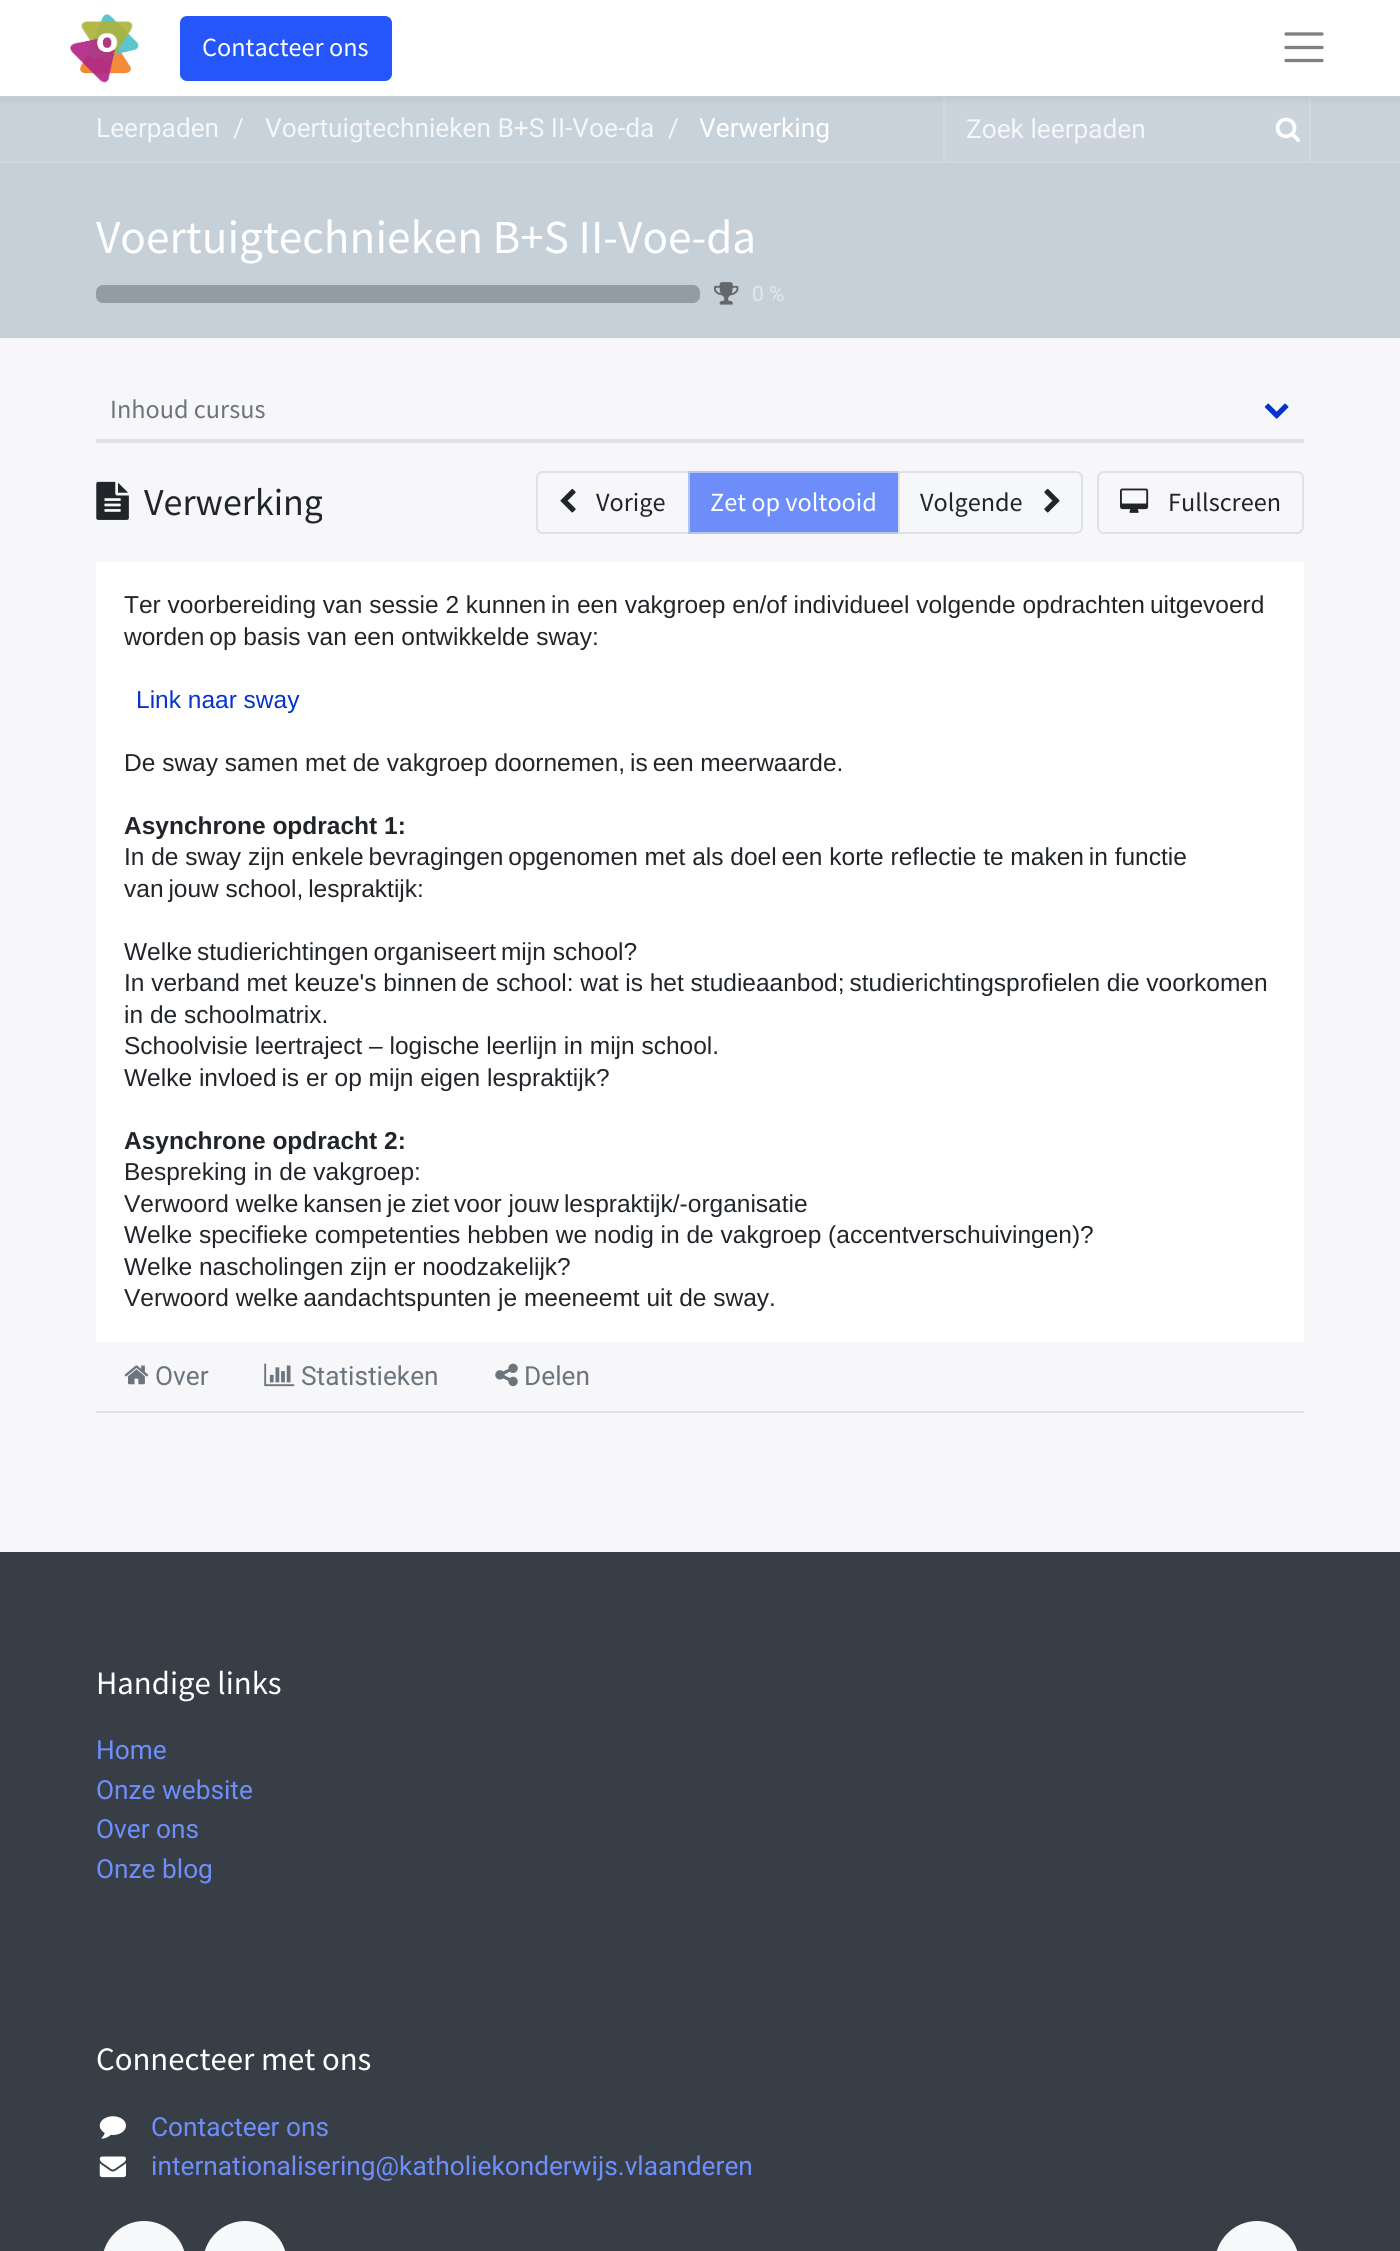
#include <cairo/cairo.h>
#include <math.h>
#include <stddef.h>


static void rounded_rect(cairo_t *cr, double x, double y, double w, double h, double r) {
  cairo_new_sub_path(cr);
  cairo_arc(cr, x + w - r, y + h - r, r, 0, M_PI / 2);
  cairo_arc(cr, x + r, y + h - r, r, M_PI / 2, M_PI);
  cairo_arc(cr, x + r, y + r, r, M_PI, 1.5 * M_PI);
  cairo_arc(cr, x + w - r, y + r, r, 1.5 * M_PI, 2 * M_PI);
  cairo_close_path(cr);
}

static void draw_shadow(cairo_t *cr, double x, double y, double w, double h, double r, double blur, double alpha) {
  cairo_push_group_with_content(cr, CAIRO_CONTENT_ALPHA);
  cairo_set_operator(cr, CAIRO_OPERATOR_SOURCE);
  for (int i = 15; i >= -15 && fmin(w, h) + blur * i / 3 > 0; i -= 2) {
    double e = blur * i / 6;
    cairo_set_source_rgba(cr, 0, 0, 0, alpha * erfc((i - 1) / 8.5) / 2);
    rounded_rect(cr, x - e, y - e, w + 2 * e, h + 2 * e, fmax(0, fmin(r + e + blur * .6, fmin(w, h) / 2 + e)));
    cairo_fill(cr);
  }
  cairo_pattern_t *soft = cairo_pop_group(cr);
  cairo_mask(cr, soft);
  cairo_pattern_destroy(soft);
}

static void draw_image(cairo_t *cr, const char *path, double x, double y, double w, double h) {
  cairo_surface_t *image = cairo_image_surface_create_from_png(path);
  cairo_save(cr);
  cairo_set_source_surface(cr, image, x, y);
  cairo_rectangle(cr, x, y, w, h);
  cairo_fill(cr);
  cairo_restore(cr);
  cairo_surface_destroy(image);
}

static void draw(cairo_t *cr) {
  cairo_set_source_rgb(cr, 247 / 255.0, 247 / 255.0, 250 / 255.0);
  cairo_paint(cr);
  cairo_set_source_rgb(cr, 200 / 255.0, 210 / 255.0, 219 / 255.0);
  cairo_rectangle(cr, 0, 98, 1400, 63);
  cairo_fill(cr);
  cairo_set_source_rgb(cr, 206 / 255.0, 215 / 255.0, 223 / 255.0);
  cairo_rectangle(cr, 0, 96, 1400, 2);
  cairo_fill(cr);
  cairo_set_source_rgb(cr, 203 / 255.0, 212 / 255.0, 221 / 255.0);
  cairo_rectangle(cr, 945, 98, 364, 63);
  cairo_fill(cr);
  cairo_set_source_rgb(cr, 208 / 255.0, 216 / 255.0, 224 / 255.0);
  cairo_rectangle(cr, 1309, 98, 2, 63);
  cairo_fill(cr);
  cairo_rectangle(cr, 943, 98, 2, 63);
  cairo_fill(cr);
  cairo_set_source_rgb(cr, 0, 0, 0);
  draw_shadow(cr, 0, 4, 1400, 96, 0, 3.5, 0.07);
  cairo_set_source_rgb(cr, 1, 1, 1);
  cairo_rectangle(cr, 0, 0, 1400, 96);
  cairo_fill(cr);
  draw_image(cr, "images/1.png", 70, 14, 69, 69);
  cairo_set_source_rgb(cr, 36 / 255.0, 86 / 255.0, 249 / 255.0);
  rounded_rect(cr, 181, 17, 210, 63, 6);
  cairo_fill_preserve(cr);
  cairo_stroke(cr);
  cairo_new_path(cr);
  cairo_move_to(cr, 1286, 34);
  cairo_line_to(cr, 1322, 34);
  cairo_move_to(cr, 1286, 47.5);
  cairo_line_to(cr, 1322, 47.5);
  cairo_move_to(cr, 1286, 60.5);
  cairo_line_to(cr, 1322, 60.5);
  cairo_set_source_rgb(cr, 128 / 255.0, 128 / 255.0, 128 / 255.0);
  cairo_set_line_width(cr, 3.3);
  cairo_set_line_cap(cr, CAIRO_LINE_CAP_ROUND);
  cairo_stroke(cr);
  cairo_set_source_rgb(cr, 197 / 255.0, 208 / 255.0, 217 / 255.0);
  cairo_rectangle(cr, 0, 163, 1400, 175);
  cairo_fill(cr);
  cairo_set_source_rgb(cr, 206 / 255.0, 215 / 255.0, 223 / 255.0);
  cairo_rectangle(cr, 0, 161, 1400, 2);
  cairo_fill(cr);
  draw_image(cr, "images/2.png", 1275, 117, 25, 25);
  cairo_set_source_rgb(cr, 148 / 255.0, 156 / 255.0, 163 / 255.0);
  rounded_rect(cr, 96, 285, 604, 18, 7);
  cairo_fill(cr);
  draw_image(cr, "images/3.png", 714, 282, 25, 23);
  cairo_set_source_rgb(cr, 222 / 255.0, 226 / 255.0, 230 / 255.0);
  cairo_rectangle(cr, 96, 439, 1208, 4);
  cairo_fill(cr);
  draw_image(cr, "images/4.png", 1264, 403, 25, 16);
  draw_image(cr, "images/5.png", 96, 481, 33, 39);
  cairo_new_path(cr);
  cairo_move_to(cr, 543, 472);
  cairo_line_to(cr, 689, 472);
  cairo_line_to(cr, 689, 533);
  cairo_line_to(cr, 543, 533);
  cairo_curve_to(cr, 539.5, 533, 537, 530.5, 537, 527);
  cairo_line_to(cr, 537, 478);
  cairo_curve_to(cr, 537, 474.5, 539.5, 472, 543, 472);
  cairo_close_path(cr);
  cairo_set_line_width(cr, 2);
  cairo_set_line_cap(cr, CAIRO_LINE_CAP_BUTT);
  cairo_stroke(cr);
  draw_image(cr, "images/6.png", 560, 488, 16, 25);
  cairo_set_source_rgba(cr, 36 / 255.0, 86 / 255.0, 249 / 255.0, 0.65);
  cairo_rectangle(cr, 688, 471, 210, 63);
  cairo_fill(cr);
  cairo_rectangle(cr, 689, 472, 210, 61);
  cairo_set_source_rgba(cr, 222 / 255.0, 226 / 255.0, 230 / 255.0, 0.65);
  cairo_stroke(cr);
  cairo_set_source_rgb(cr, 246 / 255.0, 247 / 255.0, 248 / 255.0);
  cairo_new_path(cr);
  cairo_move_to(cr, 899, 472);
  cairo_line_to(cr, 1076, 472);
  cairo_curve_to(cr, 1079.5, 472, 1082, 474.5, 1082, 478);
  cairo_line_to(cr, 1082, 527);
  cairo_curve_to(cr, 1082, 530.5, 1079.5, 533, 1076, 533);
  cairo_line_to(cr, 899, 533);
  cairo_close_path(cr);
  cairo_fill_preserve(cr);
  cairo_set_source_rgb(cr, 222 / 255.0, 226 / 255.0, 230 / 255.0);
  cairo_stroke(cr);
  draw_image(cr, "images/7.png", 1044, 488, 16, 25);
  rounded_rect(cr, 1098, 472, 205, 61, 6);
  cairo_stroke(cr);
  draw_image(cr, "images/8.png", 1120, 488, 29, 25);
  cairo_set_source_rgb(cr, 1, 1, 1);
  cairo_rectangle(cr, 96, 562, 1208, 780);
  cairo_fill(cr);
  cairo_set_source_rgb(cr, 222 / 255.0, 226 / 255.0, 230 / 255.0);
  cairo_rectangle(cr, 96, 1411, 1208, 2);
  cairo_fill(cr);
  draw_image(cr, "images/9.png", 124, 1365, 25, 20);
  draw_image(cr, "images/10.png", 264, 1363, 31, 24);
  draw_image(cr, "images/11.png", 495, 1363, 23, 24);
  cairo_set_source_rgb(cr, 56 / 255.0, 62 / 255.0, 69 / 255.0);
  cairo_rectangle(cr, 0, 1552, 1400, 699);
  cairo_fill(cr);
  draw_image(cr, "images/12.png", 99, 2116, 27, 23);
  draw_image(cr, "images/13.png", 99, 2156, 27, 22);
  cairo_set_source_rgb(cr, 248 / 255.0, 249 / 255.0, 250 / 255.0);
  cairo_new_path(cr);
  cairo_move_to(cr, 144, 2221);
  cairo_curve_to(cr, 167, 2221, 186, 2240, 186, 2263);
  cairo_line_to(cr, 186, 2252);
  cairo_line_to(cr, 102, 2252);
  cairo_line_to(cr, 102, 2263);
  cairo_curve_to(cr, 102, 2240, 121, 2221, 144, 2221);
  cairo_close_path(cr);
  cairo_fill(cr);
  cairo_new_path(cr);
  cairo_move_to(cr, 245, 2221);
  cairo_curve_to(cr, 268, 2221, 287, 2240, 287, 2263);
  cairo_line_to(cr, 287, 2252);
  cairo_line_to(cr, 203, 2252);
  cairo_line_to(cr, 203, 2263);
  cairo_curve_to(cr, 203, 2240, 222, 2221, 245, 2221);
  cairo_close_path(cr);
  cairo_fill(cr);
  cairo_new_path(cr);
  cairo_move_to(cr, 1257, 2221);
  cairo_curve_to(cr, 1280, 2221, 1299, 2240, 1299, 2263);
  cairo_line_to(cr, 1299, 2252);
  cairo_line_to(cr, 1215, 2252);
  cairo_line_to(cr, 1215, 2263);
  cairo_curve_to(cr, 1215, 2240, 1234, 2221, 1257, 2221);
  cairo_close_path(cr);
  cairo_fill(cr);
  cairo_select_font_face(cr, "Source Sans Pro", CAIRO_FONT_SLANT_NORMAL, CAIRO_FONT_WEIGHT_NORMAL);
  cairo_set_font_size(cr, 26.25);
  cairo_set_source_rgb(cr, 1, 1, 1);
  cairo_move_to(cr, 202, 56);
  cairo_show_text(cr, "Contacteer ons");
  cairo_select_font_face(cr, "Roboto", CAIRO_FONT_SLANT_NORMAL, CAIRO_FONT_WEIGHT_NORMAL);
  cairo_set_source_rgb(cr, 244 / 255.0, 246 / 255.0, 248 / 255.0);
  cairo_move_to(cr, 96, 137);
  cairo_show_text(cr, "Leerpaden");
  cairo_move_to(cr, 233, 137);
  cairo_show_text(cr, "/");
  cairo_move_to(cr, 265, 137);
  cairo_show_text(cr, "Voertuigtechnieken B+S II-Voe-da");
  cairo_move_to(cr, 668, 137);
  cairo_show_text(cr, "/");
  cairo_set_source_rgb(cr, 1, 1, 1);
  cairo_move_to(cr, 699, 137);
  cairo_show_text(cr, "Verwerking");
  cairo_set_source_rgb(cr, 244 / 255.0, 246 / 255.0, 248 / 255.0);
  cairo_move_to(cr, 966, 138);
  cairo_show_text(cr, "Zoek leerpaden");
  cairo_select_font_face(cr, "Source Sans Pro", CAIRO_FONT_SLANT_NORMAL, CAIRO_FONT_WEIGHT_NORMAL);
  cairo_set_font_size(cr, 47.25);
  cairo_set_source_rgb(cr, 1, 1, 1);
  cairo_move_to(cr, 96, 253);
  cairo_show_text(cr, "Voertuigtechnieken B+S II-Voe-da");
  cairo_select_font_face(cr, "Roboto", CAIRO_FONT_SLANT_NORMAL, CAIRO_FONT_WEIGHT_NORMAL);
  cairo_set_font_size(cr, 21);
  cairo_set_source_rgb(cr, 226 / 255.0, 232 / 255.0, 236 / 255.0);
  cairo_move_to(cr, 752, 301);
  cairo_show_text(cr, "0 %");
  cairo_select_font_face(cr, "Source Sans Pro", CAIRO_FONT_SLANT_NORMAL, CAIRO_FONT_WEIGHT_NORMAL);
  cairo_set_font_size(cr, 26.25);
  cairo_set_source_rgb(cr, 108 / 255.0, 117 / 255.0, 125 / 255.0);
  cairo_move_to(cr, 110, 418);
  cairo_show_text(cr, "Inhoud cursus");
  cairo_save(cr);
  cairo_rectangle(cr, 96, 480, 226, 45);
  cairo_clip(cr);
  cairo_set_font_size(cr, 38);
  cairo_set_source_rgb(cr, 33 / 255.0, 37 / 255.0, 41 / 255.0);
  cairo_move_to(cr, 144, 515);
  cairo_show_text(cr, "Verwerking");
  cairo_restore(cr);
  cairo_set_source_rgb(cr, 33 / 255.0, 37 / 255.0, 41 / 255.0);
  cairo_move_to(cr, 596, 511);
  cairo_show_text(cr, "Vorige");
  cairo_set_source_rgb(cr, 1, 1, 1);
  cairo_move_to(cr, 710, 511);
  cairo_show_text(cr, "Zet op voltooid");
  cairo_set_source_rgb(cr, 33 / 255.0, 37 / 255.0, 41 / 255.0);
  cairo_move_to(cr, 920, 511);
  cairo_show_text(cr, "Volgende");
  cairo_move_to(cr, 1168, 511);
  cairo_show_text(cr, "Fullscreen");
  cairo_select_font_face(cr, "Liberation Sans", CAIRO_FONT_SLANT_NORMAL, CAIRO_FONT_WEIGHT_NORMAL);
  cairo_set_font_size(cr, 24.5);
  cairo_move_to(cr, 124, 613);
  cairo_show_text(cr, "Ter voorbereiding van sessie 2 kunnen in een vakgroep en/of individueel volgende opdrachten uitgevoerd");
  cairo_move_to(cr, 124, 645);
  cairo_show_text(cr, "worden op basis van een ontwikkelde sway:");
  cairo_set_source_rgb(cr, 6 / 255.0, 52 / 255.0, 203 / 255.0);
  cairo_move_to(cr, 136, 708);
  cairo_show_text(cr, "Link naar sway");
  cairo_set_source_rgb(cr, 33 / 255.0, 37 / 255.0, 41 / 255.0);
  cairo_move_to(cr, 124, 771);
  cairo_show_text(cr, "De sway samen met de vakgroep doornemen, is een meerwaarde.");
  cairo_select_font_face(cr, "Liberation Sans", CAIRO_FONT_SLANT_NORMAL, CAIRO_FONT_WEIGHT_BOLD);
  cairo_move_to(cr, 124, 834);
  cairo_show_text(cr, "Asynchrone opdracht 1:");
  cairo_select_font_face(cr, "Liberation Sans", CAIRO_FONT_SLANT_NORMAL, CAIRO_FONT_WEIGHT_NORMAL);
  cairo_move_to(cr, 124, 865);
  cairo_show_text(cr, "In de sway zijn enkele bevragingen opgenomen met als doel een korte reflectie te maken in functie");
  cairo_move_to(cr, 124, 897);
  cairo_show_text(cr, "van jouw school, lespraktijk:");
  cairo_move_to(cr, 124, 960);
  cairo_show_text(cr, "Welke studierichtingen organiseert mijn school?");
  cairo_move_to(cr, 124, 991);
  cairo_show_text(cr, "In verband met keuze's binnen de school: wat is het studieaanbod; studierichtingsprofielen die voorkomen");
  cairo_move_to(cr, 124, 1023);
  cairo_show_text(cr, "in de schoolmatrix.");
  cairo_move_to(cr, 124, 1054);
  cairo_show_text(cr, "Schoolvisie leertraject – logische leerlijn in mijn school.");
  cairo_move_to(cr, 124, 1086);
  cairo_show_text(cr, "Welke invloed is er op mijn eigen lespraktijk?");
  cairo_select_font_face(cr, "Liberation Sans", CAIRO_FONT_SLANT_NORMAL, CAIRO_FONT_WEIGHT_BOLD);
  cairo_move_to(cr, 124, 1149);
  cairo_show_text(cr, "Asynchrone opdracht 2:");
  cairo_select_font_face(cr, "Liberation Sans", CAIRO_FONT_SLANT_NORMAL, CAIRO_FONT_WEIGHT_NORMAL);
  cairo_move_to(cr, 124, 1180);
  cairo_show_text(cr, "Bespreking in de vakgroep:");
  cairo_move_to(cr, 124, 1212);
  cairo_show_text(cr, "Verwoord welke kansen je ziet voor jouw lespraktijk/-organisatie");
  cairo_move_to(cr, 124, 1243);
  cairo_show_text(cr, "Welke specifieke competenties hebben we nodig in de vakgroep (accentverschuivingen)?");
  cairo_move_to(cr, 124, 1275);
  cairo_show_text(cr, "Welke nascholingen zijn er noodzakelijk?");
  cairo_move_to(cr, 124, 1306);
  cairo_show_text(cr, "Verwoord welke aandachtspunten je meeneemt uit de sway.");
  cairo_select_font_face(cr, "Roboto", CAIRO_FONT_SLANT_NORMAL, CAIRO_FONT_WEIGHT_NORMAL);
  cairo_set_font_size(cr, 26.25);
  cairo_set_source_rgb(cr, 108 / 255.0, 117 / 255.0, 125 / 255.0);
  cairo_move_to(cr, 155, 1385);
  cairo_show_text(cr, "Over");
  cairo_move_to(cr, 301, 1385);
  cairo_show_text(cr, "Statistieken");
  cairo_move_to(cr, 524, 1385);
  cairo_show_text(cr, "Delen");
  cairo_select_font_face(cr, "Source Sans Pro", CAIRO_FONT_SLANT_NORMAL, CAIRO_FONT_WEIGHT_NORMAL);
  cairo_set_font_size(cr, 32.75);
  cairo_set_source_rgb(cr, 1, 1, 1);
  cairo_move_to(cr, 96, 1694);
  cairo_show_text(cr, "Handige links");
  cairo_select_font_face(cr, "Roboto", CAIRO_FONT_SLANT_NORMAL, CAIRO_FONT_WEIGHT_NORMAL);
  cairo_set_font_size(cr, 26.25);
  cairo_set_source_rgb(cr, 110 / 255.0, 143 / 255.0, 251 / 255.0);
  cairo_move_to(cr, 96, 1759);
  cairo_show_text(cr, "Home");
  cairo_move_to(cr, 96, 1799);
  cairo_show_text(cr, "Onze website");
  cairo_move_to(cr, 96, 1838);
  cairo_show_text(cr, "Over ons");
  cairo_move_to(cr, 96, 1878);
  cairo_show_text(cr, "Onze blog");
  cairo_select_font_face(cr, "Source Sans Pro", CAIRO_FONT_SLANT_NORMAL, CAIRO_FONT_WEIGHT_NORMAL);
  cairo_set_font_size(cr, 32.75);
  cairo_set_source_rgb(cr, 1, 1, 1);
  cairo_move_to(cr, 96, 2070);
  cairo_show_text(cr, "Connecteer met ons");
  cairo_select_font_face(cr, "Roboto", CAIRO_FONT_SLANT_NORMAL, CAIRO_FONT_WEIGHT_NORMAL);
  cairo_set_font_size(cr, 26.25);
  cairo_set_source_rgb(cr, 110 / 255.0, 143 / 255.0, 251 / 255.0);
  cairo_move_to(cr, 151, 2136);
  cairo_show_text(cr, "Contacteer ons");
  cairo_move_to(cr, 151, 2175);
  cairo_show_text(cr, "internationalisering@katholiekonderwijs.vlaanderen");
}

int main(void) {
  cairo_surface_t *surface = cairo_image_surface_create(CAIRO_FORMAT_RGB24, 1400, 2251);
  cairo_t *cr = cairo_create(surface);
  cairo_font_options_t *options = cairo_font_options_create();
  cairo_font_options_set_hint_metrics(options, CAIRO_HINT_METRICS_OFF);
  cairo_font_options_set_hint_style(options, CAIRO_HINT_STYLE_NONE);
  cairo_set_font_options(cr, options);
  cairo_set_miter_limit(cr, 4);
  draw(cr);
  cairo_surface_write_to_png(surface, "out.png");
  cairo_font_options_destroy(options);
  cairo_destroy(cr);
  cairo_surface_destroy(surface);
  return 0;
}
